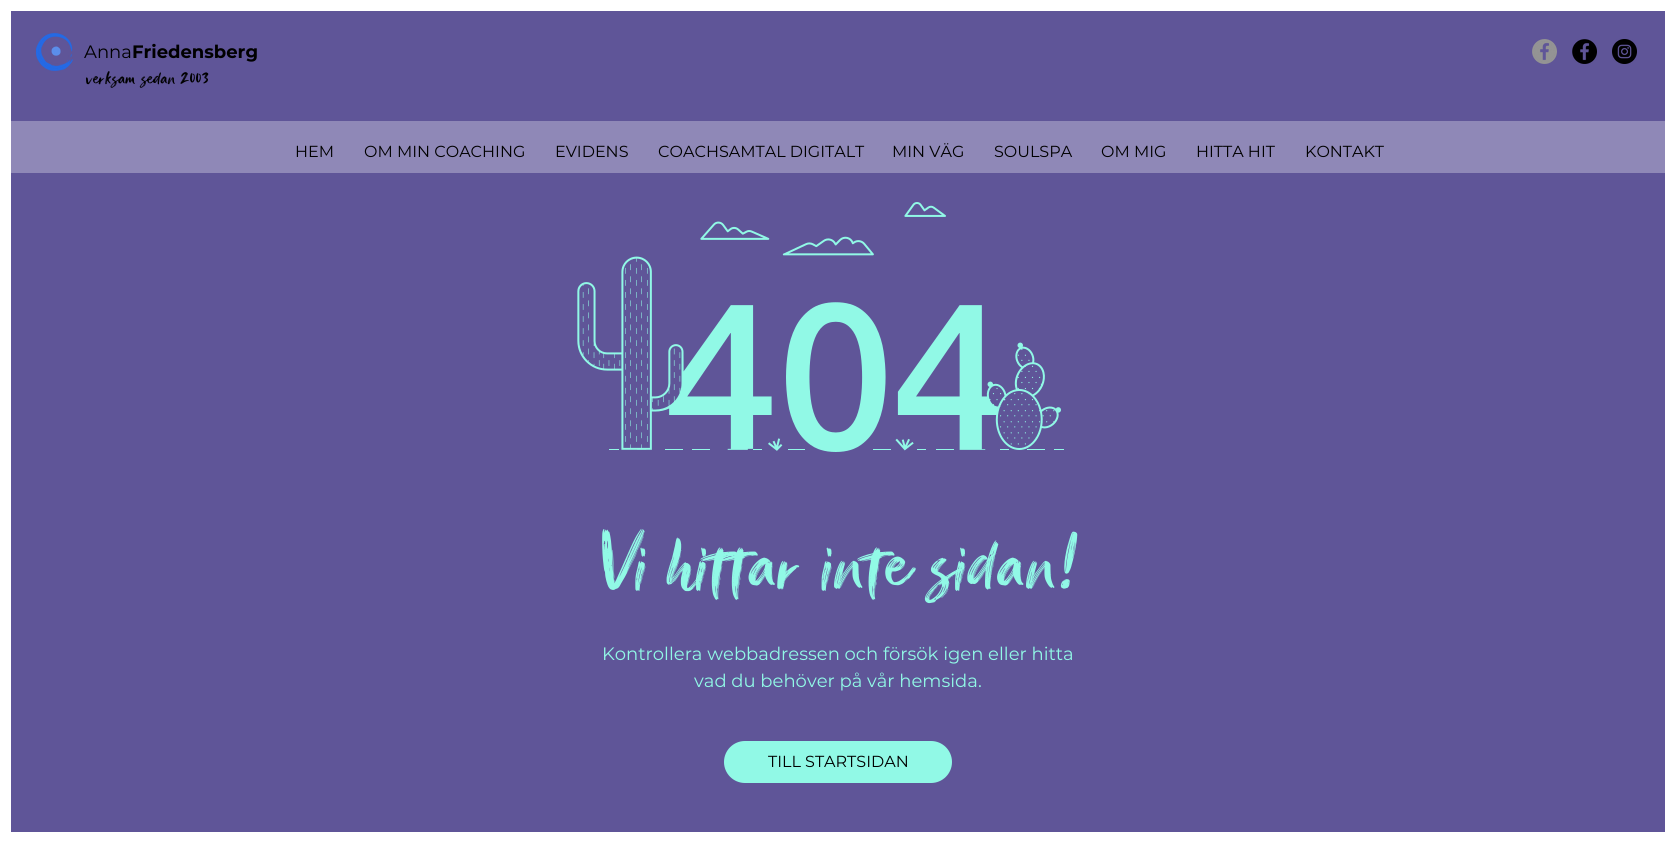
#include <cairo/cairo.h>
#include <math.h>
#include <stddef.h>


static void rounded_rect(cairo_t *cr, double x, double y, double w, double h, double r) {
  cairo_new_sub_path(cr);
  cairo_arc(cr, x + w - r, y + h - r, r, 0, M_PI / 2);
  cairo_arc(cr, x + r, y + h - r, r, M_PI / 2, M_PI);
  cairo_arc(cr, x + r, y + r, r, M_PI, 1.5 * M_PI);
  cairo_arc(cr, x + w - r, y + r, r, 1.5 * M_PI, 2 * M_PI);
  cairo_close_path(cr);
}

static void draw_image(cairo_t *cr, const char *path, double x, double y, double w, double h) {
  cairo_surface_t *image = cairo_image_surface_create_from_png(path);
  cairo_save(cr);
  cairo_set_source_surface(cr, image, x, y);
  cairo_rectangle(cr, x, y, w, h);
  cairo_fill(cr);
  cairo_restore(cr);
  cairo_surface_destroy(image);
}

static void draw(cairo_t *cr) {
  cairo_set_source_rgb(cr, 95 / 255.0, 85 / 255.0, 152 / 255.0);
  cairo_paint(cr);
  cairo_set_source_rgb(cr, 1, 1, 1);
  cairo_rectangle(cr, 0, 0, 11, 843);
  cairo_fill(cr);
  cairo_rectangle(cr, 11, 0, 1654, 11);
  cairo_fill(cr);
  cairo_rectangle(cr, 1665, 0, 11, 832);
  cairo_fill(cr);
  draw_image(cr, "images/1.png", 36, 33, 37, 38);
  draw_image(cr, "images/2.png", 1532, 39, 25, 25);
  draw_image(cr, "images/3.png", 1572, 39, 25, 25);
  draw_image(cr, "images/4.png", 1612, 39, 25, 25);
  cairo_set_source_rgb(cr, 143 / 255.0, 136 / 255.0, 183 / 255.0);
  cairo_rectangle(cr, 11, 121, 1654, 52);
  cairo_fill(cr);
  draw_image(cr, "images/5.png", 577, 202, 487, 250);
  cairo_set_source_rgb(cr, 145 / 255.0, 249 / 255.0, 230 / 255.0);
  rounded_rect(cr, 724, 741, 228, 42, 21);
  cairo_fill(cr);
  cairo_set_source_rgb(cr, 1, 1, 1);
  cairo_rectangle(cr, 11, 832, 1665, 11);
  cairo_fill(cr);
  cairo_select_font_face(cr, "Montserrat", CAIRO_FONT_SLANT_NORMAL, CAIRO_FONT_WEIGHT_NORMAL);
  cairo_set_font_size(cr, 18);
  cairo_set_source_rgb(cr, 0, 0, 0);
  cairo_move_to(cr, 84, 58);
  cairo_show_text(cr, "Anna");
  cairo_select_font_face(cr, "Montserrat", CAIRO_FONT_SLANT_NORMAL, CAIRO_FONT_WEIGHT_BOLD);
  cairo_move_to(cr, 132, 58);
  cairo_show_text(cr, "Friedensberg");
  cairo_select_font_face(cr, "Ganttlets", CAIRO_FONT_SLANT_NORMAL, CAIRO_FONT_WEIGHT_NORMAL);
  cairo_move_to(cr, 86, 83);
  cairo_show_text(cr, "verksam sedan 2003");
  cairo_select_font_face(cr, "Montserrat", CAIRO_FONT_SLANT_NORMAL, CAIRO_FONT_WEIGHT_NORMAL);
  cairo_set_font_size(cr, 16);
  cairo_move_to(cr, 295, 157);
  cairo_show_text(cr, "HEM");
  cairo_move_to(cr, 364, 157);
  cairo_show_text(cr, "OM MIN COACHING");
  cairo_move_to(cr, 555, 157);
  cairo_show_text(cr, "EVIDENS");
  cairo_move_to(cr, 658, 157);
  cairo_show_text(cr, "COACHSAMTAL DIGITALT");
  cairo_move_to(cr, 892, 157);
  cairo_show_text(cr, "MIN VÄG");
  cairo_move_to(cr, 994, 157);
  cairo_show_text(cr, "SOULSPA");
  cairo_move_to(cr, 1101, 157);
  cairo_show_text(cr, "OM MIG");
  cairo_move_to(cr, 1196, 157);
  cairo_show_text(cr, "HITTA HIT");
  cairo_move_to(cr, 1305, 157);
  cairo_show_text(cr, "KONTAKT");
  cairo_select_font_face(cr, "Ganttlets", CAIRO_FONT_SLANT_NORMAL, CAIRO_FONT_WEIGHT_NORMAL);
  cairo_set_font_size(cr, 72);
  cairo_set_source_rgb(cr, 145 / 255.0, 249 / 255.0, 230 / 255.0);
  cairo_move_to(cr, 600, 584);
  cairo_show_text(cr, "Vi hittar inte sidan!");
  cairo_select_font_face(cr, "Montserrat", CAIRO_FONT_SLANT_NORMAL, CAIRO_FONT_WEIGHT_NORMAL);
  cairo_set_font_size(cr, 18);
  cairo_move_to(cr, 602, 660);
  cairo_show_text(cr, "Kontrollera webbadressen och försök igen eller hitta");
  cairo_move_to(cr, 694, 687);
  cairo_show_text(cr, "vad du behöver på vår hemsida.");
  cairo_set_font_size(cr, 16);
  cairo_set_source_rgb(cr, 0, 0, 0);
  cairo_move_to(cr, 768, 767);
  cairo_show_text(cr, "TILL STARTSIDAN");
}

int main(void) {
  cairo_surface_t *surface = cairo_image_surface_create(CAIRO_FORMAT_RGB24, 1676, 843);
  cairo_t *cr = cairo_create(surface);
  cairo_font_options_t *options = cairo_font_options_create();
  cairo_font_options_set_hint_metrics(options, CAIRO_HINT_METRICS_OFF);
  cairo_font_options_set_hint_style(options, CAIRO_HINT_STYLE_NONE);
  cairo_set_font_options(cr, options);
  cairo_set_miter_limit(cr, 4);
  draw(cr);
  cairo_surface_write_to_png(surface, "out.png");
  cairo_font_options_destroy(options);
  cairo_destroy(cr);
  cairo_surface_destroy(surface);
  return 0;
}
